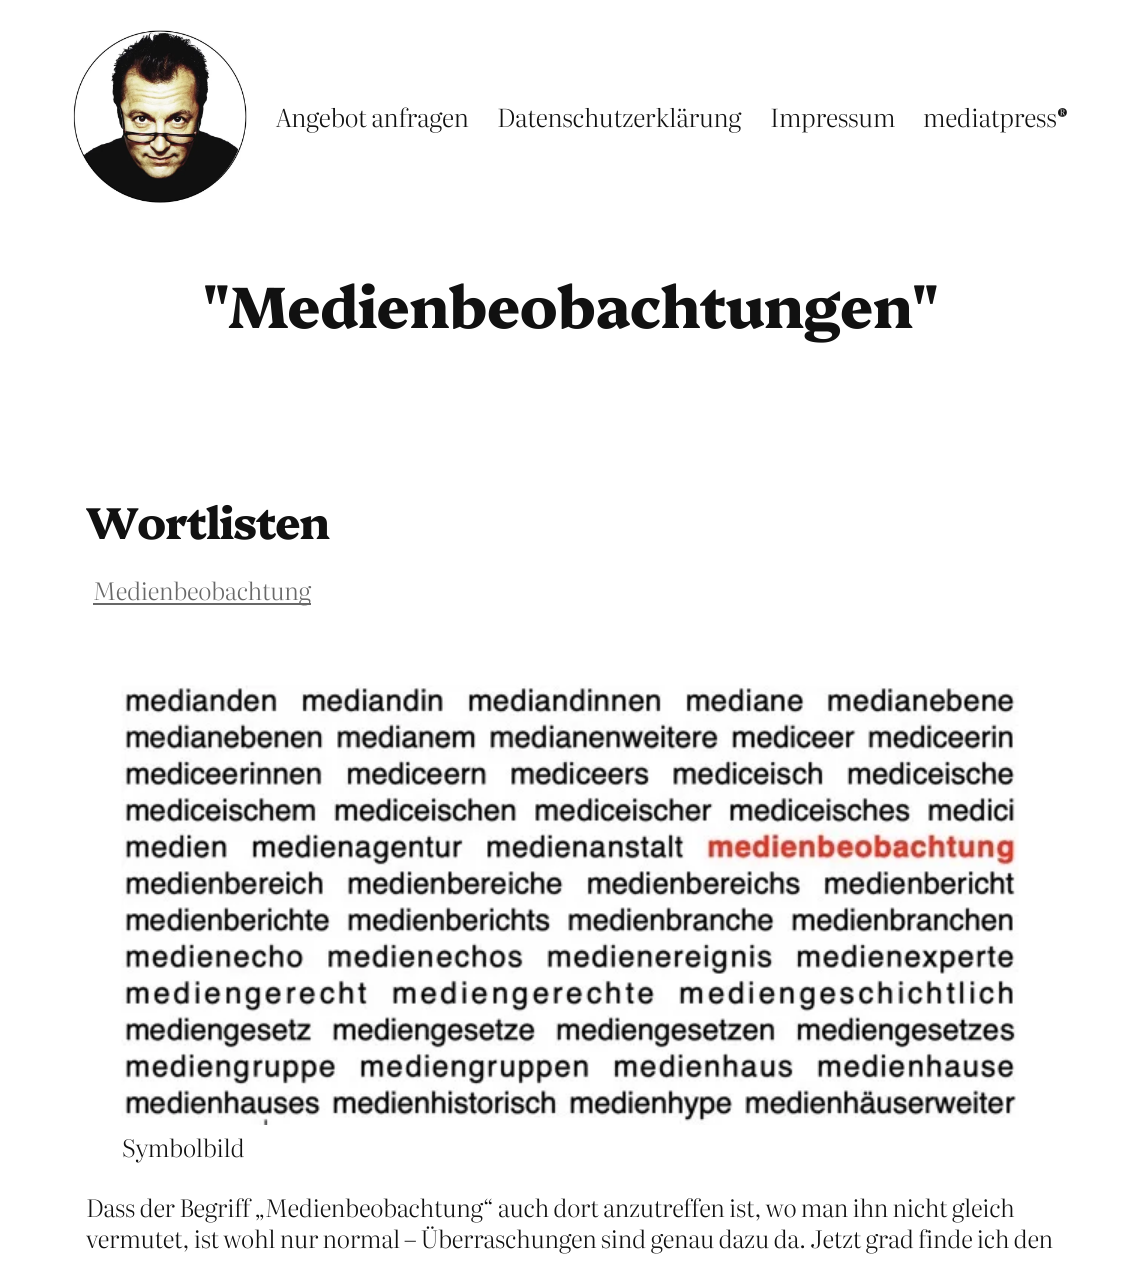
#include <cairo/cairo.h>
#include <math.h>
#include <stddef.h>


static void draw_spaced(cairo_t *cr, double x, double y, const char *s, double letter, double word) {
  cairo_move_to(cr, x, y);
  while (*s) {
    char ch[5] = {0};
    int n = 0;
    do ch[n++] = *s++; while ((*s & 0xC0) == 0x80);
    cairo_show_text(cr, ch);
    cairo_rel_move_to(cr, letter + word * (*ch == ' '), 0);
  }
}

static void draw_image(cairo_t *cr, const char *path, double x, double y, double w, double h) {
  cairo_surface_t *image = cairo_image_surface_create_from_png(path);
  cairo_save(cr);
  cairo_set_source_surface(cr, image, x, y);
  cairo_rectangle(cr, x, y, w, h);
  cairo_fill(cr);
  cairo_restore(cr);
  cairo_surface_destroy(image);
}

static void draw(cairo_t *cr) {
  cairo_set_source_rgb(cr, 1, 1, 1);
  cairo_paint(cr);
  draw_image(cr, "images/1.png", 73, 30, 174, 173);
  cairo_set_source_rgb(cr, 104 / 255.0, 104 / 255.0, 104 / 255.0);
  cairo_rectangle(cr, 93, 603, 218, 2);
  cairo_fill(cr);
  draw_image(cr, "images/2.png", 121, 685, 898, 440);
  cairo_select_font_face(cr, "Literata Light", CAIRO_FONT_SLANT_NORMAL, CAIRO_FONT_WEIGHT_NORMAL);
  cairo_set_font_size(cr, 24.9);
  cairo_set_source_rgb(cr, 17 / 255.0, 17 / 255.0, 17 / 255.0);
  draw_spaced(cr, 276, 127, "Angebot anfragen", -0.35, 0);
  draw_spaced(cr, 497, 127, "Datenschutzerklärung", -0.35, 0);
  draw_spaced(cr, 770, 127, "Impressum", -0.35, 0);
  draw_spaced(cr, 923, 127, "mediatpress®", -0.35, 0);
  cairo_select_font_face(cr, "Platypi ExtraBold", CAIRO_FONT_SLANT_NORMAL, CAIRO_FONT_WEIGHT_NORMAL);
  cairo_set_font_size(cr, 58.25);
  draw_spaced(cr, 203, 328, "\"Medienbeobachtungen\"", -0.9, 0);
  cairo_set_font_size(cr, 44.5);
  draw_spaced(cr, 86, 539, "Wortlisten", -1.5, 0);
  cairo_select_font_face(cr, "Literata Light", CAIRO_FONT_SLANT_NORMAL, CAIRO_FONT_WEIGHT_NORMAL);
  cairo_set_font_size(cr, 24);
  cairo_set_source_rgb(cr, 104 / 255.0, 104 / 255.0, 104 / 255.0);
  draw_spaced(cr, 93, 600, "Medienbeobachtung", -0.35, 0);
  cairo_set_source_rgb(cr, 17 / 255.0, 17 / 255.0, 17 / 255.0);
  draw_spaced(cr, 122, 1157, "Symbolbild", -0.35, 0);
  draw_spaced(cr, 86, 1217, "Dass der Begriff „Medienbeobachtung“ auch dort anzutreffen ist, wo man ihn nicht gleich", -0.35, 0);
  draw_spaced(cr, 86, 1248, "vermutet, ist wohl nur normal – Überraschungen sind genau dazu da. Jetzt grad finde ich den", -0.35, 0);
}

int main(void) {
  cairo_surface_t *surface = cairo_image_surface_create(CAIRO_FORMAT_RGB24, 1140, 1271);
  cairo_t *cr = cairo_create(surface);
  cairo_font_options_t *options = cairo_font_options_create();
  cairo_font_options_set_hint_metrics(options, CAIRO_HINT_METRICS_OFF);
  cairo_font_options_set_hint_style(options, CAIRO_HINT_STYLE_NONE);
  cairo_set_font_options(cr, options);
  cairo_set_miter_limit(cr, 4);
  draw(cr);
  cairo_surface_write_to_png(surface, "out.png");
  cairo_font_options_destroy(options);
  cairo_destroy(cr);
  cairo_surface_destroy(surface);
  return 0;
}
